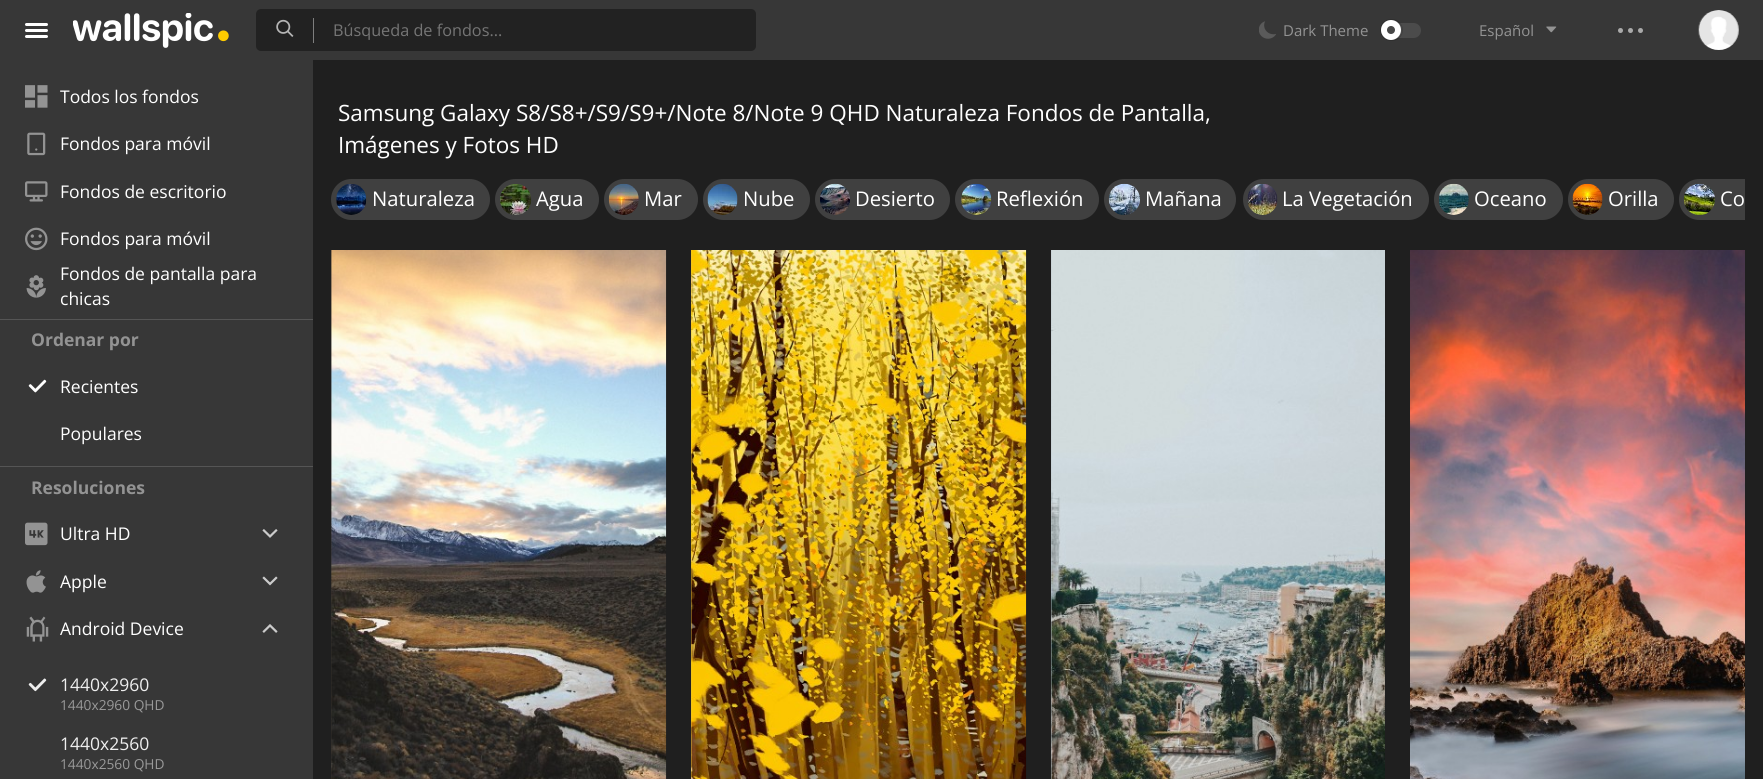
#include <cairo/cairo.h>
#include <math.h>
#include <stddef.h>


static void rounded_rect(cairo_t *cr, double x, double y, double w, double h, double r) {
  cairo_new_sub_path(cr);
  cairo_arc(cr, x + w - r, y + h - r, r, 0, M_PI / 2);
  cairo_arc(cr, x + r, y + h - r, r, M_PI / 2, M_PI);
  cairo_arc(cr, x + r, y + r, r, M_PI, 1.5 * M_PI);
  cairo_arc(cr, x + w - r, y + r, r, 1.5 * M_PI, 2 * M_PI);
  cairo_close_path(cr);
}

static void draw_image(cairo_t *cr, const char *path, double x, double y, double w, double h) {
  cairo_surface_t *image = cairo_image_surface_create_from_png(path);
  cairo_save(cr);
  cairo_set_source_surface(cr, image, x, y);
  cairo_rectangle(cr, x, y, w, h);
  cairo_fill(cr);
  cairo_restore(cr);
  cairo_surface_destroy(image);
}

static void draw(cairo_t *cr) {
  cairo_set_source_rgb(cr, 31 / 255.0, 31 / 255.0, 31 / 255.0);
  cairo_paint(cr);
  cairo_set_source_rgb(cr, 55 / 255.0, 55 / 255.0, 55 / 255.0);
  cairo_rectangle(cr, 0, 0, 1763, 60);
  cairo_fill(cr);
  cairo_set_source_rgb(cr, 1, 1, 1);
  rounded_rect(cr, 25, 23, 23, 3, 1.5);
  cairo_fill(cr);
  rounded_rect(cr, 25, 29, 23, 3, 1.5);
  cairo_fill(cr);
  rounded_rect(cr, 25, 35, 23, 3, 1.5);
  cairo_fill(cr);
  draw_image(cr, "images/1.png", 73, 13, 156, 35);
  cairo_set_source_rgb(cr, 34 / 255.0, 34 / 255.0, 34 / 255.0);
  rounded_rect(cr, 256, 9, 500, 42, 5);
  cairo_fill(cr);
  draw_image(cr, "images/2.png", 276, 19, 18, 18);
  cairo_set_source_rgb(cr, 126 / 255.0, 126 / 255.0, 126 / 255.0);
  cairo_rectangle(cr, 313, 18, 1, 25);
  cairo_fill(cr);
  draw_image(cr, "images/3.png", 1259, 21, 17, 18);
  cairo_set_source_rgb(cr, 75 / 255.0, 75 / 255.0, 75 / 255.0);
  rounded_rect(cr, 1381, 23, 40, 15, 7.5);
  cairo_fill(cr);
  rounded_rect(cr, 1380.5, 19.5, 22, 21, 10.5);
  cairo_set_source_rgba(cr, 0, 0, 0, 0.15);
  cairo_set_line_width(cr, 1);
  cairo_stroke(cr);
  cairo_set_source_rgb(cr, 71 / 255.0, 71 / 255.0, 71 / 255.0);
  cairo_arc(cr, 1391, 30, 7, 0, 2 * M_PI);
  cairo_fill_preserve(cr);
  cairo_set_source_rgb(cr, 1, 1, 1);
  cairo_set_line_width(cr, 6);
  cairo_stroke(cr);
  draw_image(cr, "images/4.png", 1546, 26, 11, 7);
  cairo_set_source_rgb(cr, 170 / 255.0, 170 / 255.0, 170 / 255.0);
  cairo_arc(cr, 1620.5, 30.5, 2.5, 0, 2 * M_PI);
  cairo_fill(cr);
  cairo_arc(cr, 1630.5, 30.5, 2.5, 0, 2 * M_PI);
  cairo_fill(cr);
  cairo_arc(cr, 1640.5, 30.5, 2.5, 0, 2 * M_PI);
  cairo_fill(cr);
  draw_image(cr, "images/5.png", 1698, 10, 41, 40);
  cairo_set_source_rgb(cr, 55 / 255.0, 55 / 255.0, 55 / 255.0);
  cairo_rectangle(cr, 0, 60, 313, 719);
  cairo_fill(cr);
  draw_image(cr, "images/6.png", 25, 85, 23, 23);
  draw_image(cr, "images/7.png", 27, 132, 19, 24);
  draw_image(cr, "images/8.png", 25, 181, 23, 21);
  draw_image(cr, "images/9.png", 25, 227, 23, 24);
  draw_image(cr, "images/10.png", 26, 275, 20, 23);
  cairo_set_source_rgb(cr, 85 / 255.0, 85 / 255.0, 85 / 255.0);
  cairo_rectangle(cr, 0, 319, 313, 1);
  cairo_fill(cr);
  draw_image(cr, "images/11.png", 28, 379, 19, 14);
  cairo_rectangle(cr, 0, 466, 313, 1);
  cairo_fill(cr);
  draw_image(cr, "images/12.png", 25, 522, 23, 24);
  draw_image(cr, "images/13.png", 262, 529, 16, 9);
  draw_image(cr, "images/14.png", 26, 570, 20, 23);
  draw_image(cr, "images/15.png", 262, 576, 16, 10);
  draw_image(cr, "images/16.png", 26, 616, 23, 26);
  draw_image(cr, "images/17.png", 262, 624, 16, 9);
  draw_image(cr, "images/18.png", 28, 678, 19, 14);
  cairo_set_source_rgb(cr, 64 / 255.0, 64 / 255.0, 64 / 255.0);
  rounded_rect(cr, 331, 179, 159, 41, 20.5);
  cairo_fill(cr);
  draw_image(cr, "images/19.png", 336, 184, 31, 31);
  rounded_rect(cr, 495, 179, 104, 41, 20.5);
  cairo_fill(cr);
  draw_image(cr, "images/20.png", 500, 184, 32, 31);
  rounded_rect(cr, 604, 179, 94, 41, 20.5);
  cairo_fill(cr);
  draw_image(cr, "images/21.png", 608, 183, 31, 32);
  rounded_rect(cr, 703, 179, 107, 41, 20.5);
  cairo_fill(cr);
  draw_image(cr, "images/22.png", 707, 183, 31, 32);
  rounded_rect(cr, 815, 179, 135, 41, 20.5);
  cairo_fill(cr);
  draw_image(cr, "images/23.png", 820, 183, 30, 32);
  rounded_rect(cr, 955, 179, 144, 41, 20.5);
  cairo_fill(cr);
  draw_image(cr, "images/24.png", 961, 183, 31, 32);
  rounded_rect(cr, 1104, 179, 132, 41, 20.5);
  cairo_fill(cr);
  draw_image(cr, "images/25.png", 1108, 183, 32, 32);
  rounded_rect(cr, 1243, 179, 186, 41, 20.5);
  cairo_fill(cr);
  draw_image(cr, "images/26.png", 1247, 184, 31, 31);
  rounded_rect(cr, 1434, 179, 129, 41, 20.5);
  cairo_fill(cr);
  draw_image(cr, "images/27.png", 1439, 183, 30, 32);
  rounded_rect(cr, 1568, 179, 106, 41, 20.5);
  cairo_fill(cr);
  draw_image(cr, "images/28.png", 1572, 183, 31, 32);
  cairo_new_path(cr);
  cairo_move_to(cr, 1699.5, 179);
  cairo_line_to(cr, 1745, 179);
  cairo_line_to(cr, 1745, 220);
  cairo_line_to(cr, 1699.5, 220);
  cairo_curve_to(cr, 1688, 220, 1679, 211, 1679, 199.5);
  cairo_curve_to(cr, 1679, 188, 1688, 179, 1699.5, 179);
  cairo_close_path(cr);
  cairo_fill(cr);
  draw_image(cr, "images/29.png", 1683, 183, 32, 32);
  cairo_set_source_rgb(cr, 54 / 255.0, 50 / 255.0, 46 / 255.0);
  cairo_rectangle(cr, 331, 250, 1, 529);
  cairo_fill(cr);
  draw_image(cr, "images/30.png", 331, 250, 336, 529);
  cairo_set_source_rgb(cr, 233 / 255.0, 193 / 255.0, 58 / 255.0);
  cairo_rectangle(cr, 691, 250, 1, 529);
  cairo_fill(cr);
  draw_image(cr, "images/31.png", 691, 250, 336, 529);
  cairo_set_source_rgb(cr, 194 / 255.0, 205 / 255.0, 210 / 255.0);
  cairo_rectangle(cr, 1051, 250, 1, 529);
  cairo_fill(cr);
  draw_image(cr, "images/32.png", 1051, 250, 334, 529);
  draw_image(cr, "images/33.png", 1410, 250, 335, 529);
  cairo_select_font_face(cr, "Open Sans", CAIRO_FONT_SLANT_NORMAL, CAIRO_FONT_WEIGHT_NORMAL);
  cairo_set_font_size(cr, 16.25);
  cairo_set_source_rgb(cr, 117 / 255.0, 117 / 255.0, 117 / 255.0);
  cairo_move_to(cr, 333, 36);
  cairo_show_text(cr, "Búsqueda de fondos...");
  cairo_set_font_size(cr, 15);
  cairo_set_source_rgb(cr, 147 / 255.0, 147 / 255.0, 147 / 255.0);
  cairo_move_to(cr, 1283, 36);
  cairo_show_text(cr, "Dark Theme");
  cairo_move_to(cr, 1479, 36);
  cairo_show_text(cr, "Español");
  cairo_set_font_size(cr, 17.5);
  cairo_set_source_rgb(cr, 1, 1, 1);
  cairo_move_to(cr, 60, 103);
  cairo_show_text(cr, "Todos los fondos");
  cairo_move_to(cr, 60, 150);
  cairo_show_text(cr, "Fondos para móvil");
  cairo_move_to(cr, 60, 198);
  cairo_show_text(cr, "Fondos de escritorio");
  cairo_move_to(cr, 60, 245);
  cairo_show_text(cr, "Fondos para móvil");
  cairo_move_to(cr, 60, 280);
  cairo_show_text(cr, "Fondos de pantalla para");
  cairo_move_to(cr, 60, 305);
  cairo_show_text(cr, "chicas");
  cairo_select_font_face(cr, "Open Sans", CAIRO_FONT_SLANT_NORMAL, CAIRO_FONT_WEIGHT_BOLD);
  cairo_set_source_rgb(cr, 147 / 255.0, 147 / 255.0, 147 / 255.0);
  cairo_move_to(cr, 31, 346);
  cairo_show_text(cr, "Ordenar por");
  cairo_select_font_face(cr, "Open Sans", CAIRO_FONT_SLANT_NORMAL, CAIRO_FONT_WEIGHT_NORMAL);
  cairo_set_source_rgb(cr, 1, 1, 1);
  cairo_move_to(cr, 60, 393);
  cairo_show_text(cr, "Recientes");
  cairo_move_to(cr, 60, 440);
  cairo_show_text(cr, "Populares");
  cairo_select_font_face(cr, "Open Sans", CAIRO_FONT_SLANT_NORMAL, CAIRO_FONT_WEIGHT_BOLD);
  cairo_set_source_rgb(cr, 147 / 255.0, 147 / 255.0, 147 / 255.0);
  cairo_move_to(cr, 31, 494);
  cairo_show_text(cr, "Resoluciones");
  cairo_select_font_face(cr, "Open Sans", CAIRO_FONT_SLANT_NORMAL, CAIRO_FONT_WEIGHT_NORMAL);
  cairo_set_source_rgb(cr, 1, 1, 1);
  cairo_move_to(cr, 60, 540);
  cairo_show_text(cr, "Ultra HD");
  cairo_move_to(cr, 60, 588);
  cairo_show_text(cr, "Apple");
  cairo_move_to(cr, 60, 635);
  cairo_show_text(cr, "Android Device");
  cairo_set_source_rgb(cr, 238 / 255.0, 238 / 255.0, 238 / 255.0);
  cairo_move_to(cr, 60, 691);
  cairo_show_text(cr, "1440x2960");
  cairo_set_font_size(cr, 13.75);
  cairo_set_source_rgb(cr, 153 / 255.0, 153 / 255.0, 153 / 255.0);
  cairo_move_to(cr, 60, 710);
  cairo_show_text(cr, "1440x2960 QHD");
  cairo_set_font_size(cr, 17.5);
  cairo_set_source_rgb(cr, 238 / 255.0, 238 / 255.0, 238 / 255.0);
  cairo_move_to(cr, 60, 750);
  cairo_show_text(cr, "1440x2560");
  cairo_set_font_size(cr, 13.75);
  cairo_set_source_rgb(cr, 153 / 255.0, 153 / 255.0, 153 / 255.0);
  cairo_move_to(cr, 60, 769);
  cairo_show_text(cr, "1440x2560 QHD");
  cairo_set_font_size(cr, 22.5);
  cairo_set_source_rgb(cr, 1, 1, 1);
  cairo_move_to(cr, 338, 121);
  cairo_show_text(cr, "Samsung Galaxy S8/S8+/S9/S9+/Note 8/Note 9 QHD Naturaleza Fondos de Pantalla,");
  cairo_move_to(cr, 338, 153);
  cairo_show_text(cr, "Imágenes y Fotos HD");
  cairo_set_font_size(cr, 20.25);
  cairo_move_to(cr, 372, 206);
  cairo_show_text(cr, "Naturaleza");
  cairo_move_to(cr, 536, 206);
  cairo_show_text(cr, "Agua");
  cairo_move_to(cr, 644, 206);
  cairo_show_text(cr, "Mar");
  cairo_move_to(cr, 743, 206);
  cairo_show_text(cr, "Nube");
  cairo_move_to(cr, 855, 206);
  cairo_show_text(cr, "Desierto");
  cairo_move_to(cr, 996, 206);
  cairo_show_text(cr, "Reflexión");
  cairo_move_to(cr, 1145, 206);
  cairo_show_text(cr, "Mañana");
  cairo_move_to(cr, 1282, 206);
  cairo_show_text(cr, "La Vegetación");
  cairo_move_to(cr, 1474, 206);
  cairo_show_text(cr, "Oceano");
  cairo_move_to(cr, 1608, 206);
  cairo_show_text(cr, "Orilla");
  cairo_move_to(cr, 1720, 206);
  cairo_show_text(cr, "Co");
}

int main(void) {
  cairo_surface_t *surface = cairo_image_surface_create(CAIRO_FORMAT_RGB24, 1763, 779);
  cairo_t *cr = cairo_create(surface);
  cairo_font_options_t *options = cairo_font_options_create();
  cairo_font_options_set_hint_metrics(options, CAIRO_HINT_METRICS_OFF);
  cairo_font_options_set_hint_style(options, CAIRO_HINT_STYLE_NONE);
  cairo_set_font_options(cr, options);
  cairo_set_miter_limit(cr, 4);
  draw(cr);
  cairo_surface_write_to_png(surface, "out.png");
  cairo_font_options_destroy(options);
  cairo_destroy(cr);
  cairo_surface_destroy(surface);
  return 0;
}
